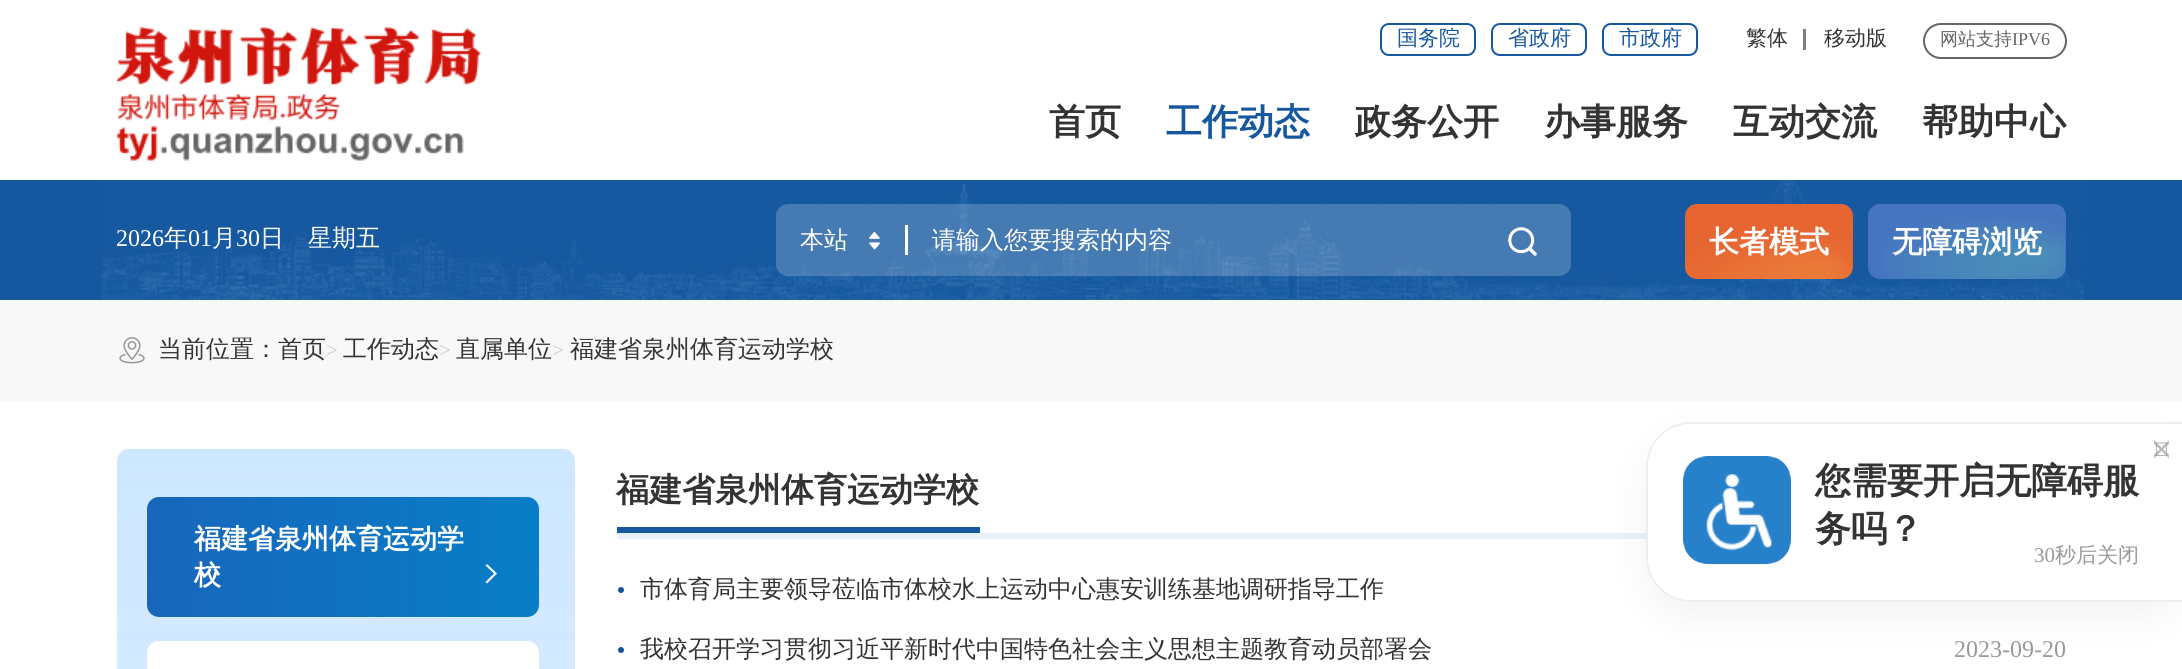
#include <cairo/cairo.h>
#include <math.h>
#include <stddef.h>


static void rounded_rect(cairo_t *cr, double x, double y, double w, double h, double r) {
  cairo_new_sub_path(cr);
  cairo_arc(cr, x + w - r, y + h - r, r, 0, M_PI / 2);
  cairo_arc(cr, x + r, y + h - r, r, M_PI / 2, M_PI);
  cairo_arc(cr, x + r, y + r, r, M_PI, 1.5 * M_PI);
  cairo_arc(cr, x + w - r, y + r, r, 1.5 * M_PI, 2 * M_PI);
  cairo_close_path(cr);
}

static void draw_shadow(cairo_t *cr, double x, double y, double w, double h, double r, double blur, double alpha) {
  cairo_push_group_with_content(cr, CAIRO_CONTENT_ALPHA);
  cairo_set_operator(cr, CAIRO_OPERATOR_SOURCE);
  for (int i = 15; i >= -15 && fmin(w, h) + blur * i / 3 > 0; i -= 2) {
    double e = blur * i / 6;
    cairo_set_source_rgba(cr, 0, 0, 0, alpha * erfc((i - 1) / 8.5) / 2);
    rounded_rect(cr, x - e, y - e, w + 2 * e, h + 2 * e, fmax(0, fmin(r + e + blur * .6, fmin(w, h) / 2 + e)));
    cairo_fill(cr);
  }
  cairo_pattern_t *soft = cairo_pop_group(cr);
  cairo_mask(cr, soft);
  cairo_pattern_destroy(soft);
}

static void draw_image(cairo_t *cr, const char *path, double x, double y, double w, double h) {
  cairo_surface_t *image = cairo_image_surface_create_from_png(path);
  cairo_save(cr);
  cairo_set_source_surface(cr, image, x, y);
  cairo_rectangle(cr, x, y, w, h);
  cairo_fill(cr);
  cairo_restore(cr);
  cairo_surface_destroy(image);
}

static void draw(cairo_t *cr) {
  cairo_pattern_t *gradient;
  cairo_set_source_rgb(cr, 1, 1, 1);
  cairo_paint(cr);
  draw_image(cr, "images/1.png", 117, 27, 365, 134);
  rounded_rect(cr, 1381, 24, 94, 31, 8);
  cairo_set_source_rgb(cr, 22 / 255.0, 88 / 255.0, 160 / 255.0);
  cairo_stroke(cr);
  rounded_rect(cr, 1492, 24, 94, 31, 8);
  cairo_stroke(cr);
  rounded_rect(cr, 1603, 24, 94, 31, 8);
  cairo_stroke(cr);
  cairo_set_source_rgb(cr, 125 / 255.0, 125 / 255.0, 125 / 255.0);
  cairo_rectangle(cr, 1803, 29, 3, 21);
  cairo_fill(cr);
  rounded_rect(cr, 1924, 24, 142, 34, 17);
  cairo_set_source_rgb(cr, 102 / 255.0, 102 / 255.0, 102 / 255.0);
  cairo_stroke(cr);
  cairo_set_source_rgb(cr, 22 / 255.0, 88 / 255.0, 160 / 255.0);
  cairo_rectangle(cr, 0, 180, 2182, 120);
  cairo_fill(cr);
  draw_image(cr, "images/2.png", 101, 180, 1983, 120);
  cairo_set_source_rgba(cr, 1, 1, 1, 0.2);
  rounded_rect(cr, 776, 204, 795, 72, 12);
  cairo_fill(cr);
  draw_image(cr, "images/3.png", 869, 231, 11, 19);
  cairo_set_source_rgb(cr, 1, 1, 1);
  cairo_rectangle(cr, 905, 225, 3, 30);
  cairo_fill(cr);
  draw_image(cr, "images/4.png", 1508, 227, 29, 29);
  cairo_set_source_rgb(cr, 230 / 255.0, 101 / 255.0, 49 / 255.0);
  rounded_rect(cr, 1685, 204, 168, 75, 12);
  cairo_fill(cr);
  draw_image(cr, "images/5.png", 1685, 236, 167, 43);
  cairo_set_source_rgb(cr, 70 / 255.0, 116 / 255.0, 192 / 255.0);
  rounded_rect(cr, 1868, 204, 198, 75, 12);
  cairo_fill(cr);
  draw_image(cr, "images/6.png", 1882, 217, 184, 62);
  cairo_set_source_rgb(cr, 248 / 255.0, 248 / 255.0, 248 / 255.0);
  cairo_rectangle(cr, 0, 300, 2182, 101);
  cairo_fill(cr);
  draw_image(cr, "images/7.png", 119, 337, 26, 27);
  cairo_set_source_rgb(cr, 240 / 255.0, 247 / 255.0, 1);
  rounded_rect(cr, 117, 449, 458, 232, 12);
  cairo_fill(cr);
  gradient = cairo_pattern_create_linear(346, 449, 346, 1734);
  cairo_pattern_add_color_stop_rgba(gradient, 0, 64 / 255.0, 166 / 255.0, 1, 0.2);
  cairo_pattern_add_color_stop_rgba(gradient, 1, 64 / 255.0, 166 / 255.0, 1, 0);
  cairo_set_source(cr, gradient);
  cairo_pattern_destroy(gradient);
  rounded_rect(cr, 117, 449, 458, 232, 12);
  cairo_fill(cr);
  cairo_set_source_rgb(cr, 22 / 255.0, 88 / 255.0, 160 / 255.0);
  cairo_rectangle(cr, 617, 527, 363, 6);
  cairo_fill(cr);
  cairo_set_source_rgb(cr, 231 / 255.0, 241 / 255.0, 252 / 255.0);
  cairo_rectangle(cr, 617, 533, 1029, 6);
  cairo_fill(cr);
  cairo_set_source_rgb(cr, 22 / 255.0, 88 / 255.0, 160 / 255.0);
  cairo_arc(cr, 621, 590, 3, 0, 2 * M_PI);
  cairo_fill(cr);
  cairo_arc(cr, 621, 650, 3, 0, 2 * M_PI);
  cairo_fill(cr);
  gradient = cairo_pattern_create_linear(147, 557, 539, 557);
  cairo_pattern_add_color_stop_rgba(gradient, 0, 24 / 255.0, 102 / 255.0, 187 / 255.0, 1);
  cairo_pattern_add_color_stop_rgba(gradient, 1, 8 / 255.0, 126 / 255.0, 199 / 255.0, 1);
  cairo_set_source(cr, gradient);
  cairo_pattern_destroy(gradient);
  rounded_rect(cr, 147, 497, 392, 120, 12);
  cairo_fill(cr);
  cairo_set_source_rgb(cr, 1, 1, 1);
  cairo_new_path(cr);
  cairo_move_to(cr, 487, 564);
  cairo_line_to(cr, 485.5, 565.5);
  cairo_line_to(cr, 494, 573.5);
  cairo_line_to(cr, 485.5, 582);
  cairo_line_to(cr, 487, 583.5);
  cairo_line_to(cr, 497, 573.5);
  cairo_close_path(cr);
  cairo_fill(cr);
  rounded_rect(cr, 147, 641, 392, 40, 12);
  cairo_fill(cr);
  cairo_set_source_rgb(cr, 4 / 255.0, 4 / 255.0, 4 / 255.0);
  draw_shadow(cr, 1646, 437, 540, 180, 45, 20, 0.05);
  cairo_set_source_rgb(cr, 1, 1, 1);
  cairo_new_path(cr);
  cairo_move_to(cr, 1691, 423);
  cairo_line_to(cr, 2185, 423);
  cairo_line_to(cr, 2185, 601);
  cairo_line_to(cr, 1691, 601);
  cairo_curve_to(cr, 1666.5, 601, 1647, 581.5, 1647, 557);
  cairo_line_to(cr, 1647, 467);
  cairo_curve_to(cr, 1647, 442.5, 1666.5, 423, 1691, 423);
  cairo_close_path(cr);
  cairo_fill_preserve(cr);
  cairo_set_source_rgb(cr, 236 / 255.0, 239 / 255.0, 242 / 255.0);
  cairo_stroke(cr);
  draw_image(cr, "images/8.png", 2154, 439, 15, 20);
  draw_image(cr, "images/9.png", 2155, 442, 12, 14);
  draw_image(cr, "images/10.png", 1683, 456, 108, 108);
  cairo_select_font_face(cr, "WenQuanYi Zen Hei Medium", CAIRO_FONT_SLANT_NORMAL, CAIRO_FONT_WEIGHT_NORMAL);
  cairo_set_font_size(cr, 21);
  cairo_set_source_rgb(cr, 22 / 255.0, 88 / 255.0, 160 / 255.0);
  cairo_move_to(cr, 1397, 45);
  cairo_show_text(cr, "国务院");
  cairo_move_to(cr, 1508, 45);
  cairo_show_text(cr, "省政府");
  cairo_move_to(cr, 1619, 45);
  cairo_show_text(cr, "市政府");
  cairo_set_source_rgb(cr, 51 / 255.0, 51 / 255.0, 51 / 255.0);
  cairo_move_to(cr, 1746, 45);
  cairo_show_text(cr, "繁体");
  cairo_move_to(cr, 1824, 45);
  cairo_show_text(cr, "移动版");
  cairo_set_font_size(cr, 18);
  cairo_set_source_rgb(cr, 102 / 255.0, 102 / 255.0, 102 / 255.0);
  cairo_move_to(cr, 1940, 45);
  cairo_show_text(cr, "网站支持");
  cairo_select_font_face(cr, "Liberation Serif", CAIRO_FONT_SLANT_NORMAL, CAIRO_FONT_WEIGHT_NORMAL);
  cairo_move_to(cr, 2012, 45);
  cairo_show_text(cr, "IPV6");
  cairo_select_font_face(cr, "WenQuanYi Zen Hei", CAIRO_FONT_SLANT_NORMAL, CAIRO_FONT_WEIGHT_BOLD);
  cairo_set_font_size(cr, 36);
  cairo_set_source_rgb(cr, 51 / 255.0, 51 / 255.0, 51 / 255.0);
  cairo_move_to(cr, 1049, 134);
  cairo_show_text(cr, "首页");
  cairo_set_source_rgb(cr, 22 / 255.0, 88 / 255.0, 160 / 255.0);
  cairo_move_to(cr, 1166, 134);
  cairo_show_text(cr, "工作动态");
  cairo_set_source_rgb(cr, 51 / 255.0, 51 / 255.0, 51 / 255.0);
  cairo_move_to(cr, 1355, 134);
  cairo_show_text(cr, "政务公开");
  cairo_move_to(cr, 1544, 134);
  cairo_show_text(cr, "办事服务");
  cairo_move_to(cr, 1733, 134);
  cairo_show_text(cr, "互动交流");
  cairo_move_to(cr, 1922, 134);
  cairo_show_text(cr, "帮助中心");
  cairo_select_font_face(cr, "Liberation Serif", CAIRO_FONT_SLANT_NORMAL, CAIRO_FONT_WEIGHT_NORMAL);
  cairo_set_font_size(cr, 24);
  cairo_set_source_rgb(cr, 1, 1, 1);
  cairo_move_to(cr, 116, 246);
  cairo_show_text(cr, "2026");
  cairo_select_font_face(cr, "WenQuanYi Zen Hei Medium", CAIRO_FONT_SLANT_NORMAL, CAIRO_FONT_WEIGHT_NORMAL);
  cairo_move_to(cr, 164, 246);
  cairo_show_text(cr, "年");
  cairo_select_font_face(cr, "Liberation Serif", CAIRO_FONT_SLANT_NORMAL, CAIRO_FONT_WEIGHT_NORMAL);
  cairo_move_to(cr, 188, 246);
  cairo_show_text(cr, "01");
  cairo_select_font_face(cr, "WenQuanYi Zen Hei Medium", CAIRO_FONT_SLANT_NORMAL, CAIRO_FONT_WEIGHT_NORMAL);
  cairo_move_to(cr, 212, 246);
  cairo_show_text(cr, "月");
  cairo_select_font_face(cr, "Liberation Serif", CAIRO_FONT_SLANT_NORMAL, CAIRO_FONT_WEIGHT_NORMAL);
  cairo_move_to(cr, 236, 246);
  cairo_show_text(cr, "30");
  cairo_select_font_face(cr, "WenQuanYi Zen Hei Medium", CAIRO_FONT_SLANT_NORMAL, CAIRO_FONT_WEIGHT_NORMAL);
  cairo_move_to(cr, 260, 246);
  cairo_show_text(cr, "日");
  cairo_move_to(cr, 308, 246);
  cairo_show_text(cr, "星期五");
  cairo_move_to(cr, 800, 248);
  cairo_show_text(cr, "本站");
  cairo_move_to(cr, 932, 248);
  cairo_show_text(cr, "请输入您要搜索的内容");
  cairo_select_font_face(cr, "WenQuanYi Zen Hei", CAIRO_FONT_SLANT_NORMAL, CAIRO_FONT_WEIGHT_BOLD);
  cairo_set_font_size(cr, 30);
  cairo_move_to(cr, 1709, 252);
  cairo_show_text(cr, "长者模式");
  cairo_move_to(cr, 1892, 252);
  cairo_show_text(cr, "无障碍浏览");
  cairo_select_font_face(cr, "WenQuanYi Zen Hei Medium", CAIRO_FONT_SLANT_NORMAL, CAIRO_FONT_WEIGHT_NORMAL);
  cairo_set_font_size(cr, 24);
  cairo_set_source_rgb(cr, 51 / 255.0, 51 / 255.0, 51 / 255.0);
  cairo_move_to(cr, 158, 357);
  cairo_show_text(cr, "当前位置：首页");
  cairo_select_font_face(cr, "Liberation Serif", CAIRO_FONT_SLANT_NORMAL, CAIRO_FONT_WEIGHT_NORMAL);
  cairo_set_font_size(cr, 21);
  cairo_set_source_rgb(cr, 204 / 255.0, 204 / 255.0, 204 / 255.0);
  cairo_move_to(cr, 326, 357);
  cairo_show_text(cr, ">");
  cairo_select_font_face(cr, "WenQuanYi Zen Hei Medium", CAIRO_FONT_SLANT_NORMAL, CAIRO_FONT_WEIGHT_NORMAL);
  cairo_set_font_size(cr, 24);
  cairo_set_source_rgb(cr, 51 / 255.0, 51 / 255.0, 51 / 255.0);
  cairo_move_to(cr, 343, 357);
  cairo_show_text(cr, "工作动态");
  cairo_select_font_face(cr, "Liberation Serif", CAIRO_FONT_SLANT_NORMAL, CAIRO_FONT_WEIGHT_NORMAL);
  cairo_set_font_size(cr, 21);
  cairo_set_source_rgb(cr, 204 / 255.0, 204 / 255.0, 204 / 255.0);
  cairo_move_to(cr, 439, 357);
  cairo_show_text(cr, ">");
  cairo_select_font_face(cr, "WenQuanYi Zen Hei Medium", CAIRO_FONT_SLANT_NORMAL, CAIRO_FONT_WEIGHT_NORMAL);
  cairo_set_font_size(cr, 24);
  cairo_set_source_rgb(cr, 51 / 255.0, 51 / 255.0, 51 / 255.0);
  cairo_move_to(cr, 456, 357);
  cairo_show_text(cr, "直属单位");
  cairo_select_font_face(cr, "Liberation Serif", CAIRO_FONT_SLANT_NORMAL, CAIRO_FONT_WEIGHT_NORMAL);
  cairo_set_font_size(cr, 21);
  cairo_set_source_rgb(cr, 204 / 255.0, 204 / 255.0, 204 / 255.0);
  cairo_move_to(cr, 552, 357);
  cairo_show_text(cr, ">");
  cairo_select_font_face(cr, "WenQuanYi Zen Hei Medium", CAIRO_FONT_SLANT_NORMAL, CAIRO_FONT_WEIGHT_NORMAL);
  cairo_set_font_size(cr, 24);
  cairo_set_source_rgb(cr, 51 / 255.0, 51 / 255.0, 51 / 255.0);
  cairo_move_to(cr, 570, 357);
  cairo_show_text(cr, "福建省泉州体育运动学校");
  cairo_select_font_face(cr, "WenQuanYi Zen Hei", CAIRO_FONT_SLANT_NORMAL, CAIRO_FONT_WEIGHT_BOLD);
  cairo_set_font_size(cr, 33);
  cairo_move_to(cr, 616, 501);
  cairo_show_text(cr, "福建省泉州体育运动学校");
  cairo_select_font_face(cr, "WenQuanYi Zen Hei Medium", CAIRO_FONT_SLANT_NORMAL, CAIRO_FONT_WEIGHT_NORMAL);
  cairo_set_font_size(cr, 24);
  cairo_move_to(cr, 640, 597);
  cairo_show_text(cr, "市体育局主要领导莅临市体校水上运动中心惠安训练基地调研指导工作");
  cairo_move_to(cr, 640, 657);
  cairo_show_text(cr, "我校召开学习贯彻习近平新时代中国特色社会主义思想主题教育动员部署会");
  cairo_select_font_face(cr, "Liberation Serif", CAIRO_FONT_SLANT_NORMAL, CAIRO_FONT_WEIGHT_NORMAL);
  cairo_set_source_rgb(cr, 153 / 255.0, 153 / 255.0, 153 / 255.0);
  cairo_move_to(cr, 1954, 657);
  cairo_show_text(cr, "2023-09-20");
  cairo_select_font_face(cr, "WenQuanYi Zen Hei", CAIRO_FONT_SLANT_NORMAL, CAIRO_FONT_WEIGHT_BOLD);
  cairo_set_font_size(cr, 27);
  cairo_set_source_rgb(cr, 1, 1, 1);
  cairo_move_to(cr, 194, 548);
  cairo_show_text(cr, "福建省泉州体育运动学");
  cairo_move_to(cr, 194, 584);
  cairo_show_text(cr, "校");
  cairo_set_font_size(cr, 36);
  cairo_set_source_rgb(cr, 51 / 255.0, 51 / 255.0, 51 / 255.0);
  cairo_move_to(cr, 1815, 493);
  cairo_show_text(cr, "您需要开启无障碍服");
  cairo_move_to(cr, 1815, 541);
  cairo_show_text(cr, "务吗？");
  cairo_select_font_face(cr, "Liberation Serif", CAIRO_FONT_SLANT_NORMAL, CAIRO_FONT_WEIGHT_NORMAL);
  cairo_set_font_size(cr, 21);
  cairo_set_source_rgb(cr, 153 / 255.0, 153 / 255.0, 153 / 255.0);
  cairo_move_to(cr, 2034, 562);
  cairo_show_text(cr, "30");
  cairo_select_font_face(cr, "WenQuanYi Zen Hei Medium", CAIRO_FONT_SLANT_NORMAL, CAIRO_FONT_WEIGHT_NORMAL);
  cairo_move_to(cr, 2055, 562);
  cairo_show_text(cr, "秒后关闭");
}

int main(void) {
  cairo_surface_t *surface = cairo_image_surface_create(CAIRO_FORMAT_RGB24, 2182, 669);
  cairo_t *cr = cairo_create(surface);
  cairo_font_options_t *options = cairo_font_options_create();
  cairo_font_options_set_hint_metrics(options, CAIRO_HINT_METRICS_OFF);
  cairo_font_options_set_hint_style(options, CAIRO_HINT_STYLE_NONE);
  cairo_set_font_options(cr, options);
  cairo_set_miter_limit(cr, 4);
  draw(cr);
  cairo_surface_write_to_png(surface, "out.png");
  cairo_font_options_destroy(options);
  cairo_destroy(cr);
  cairo_surface_destroy(surface);
  return 0;
}
